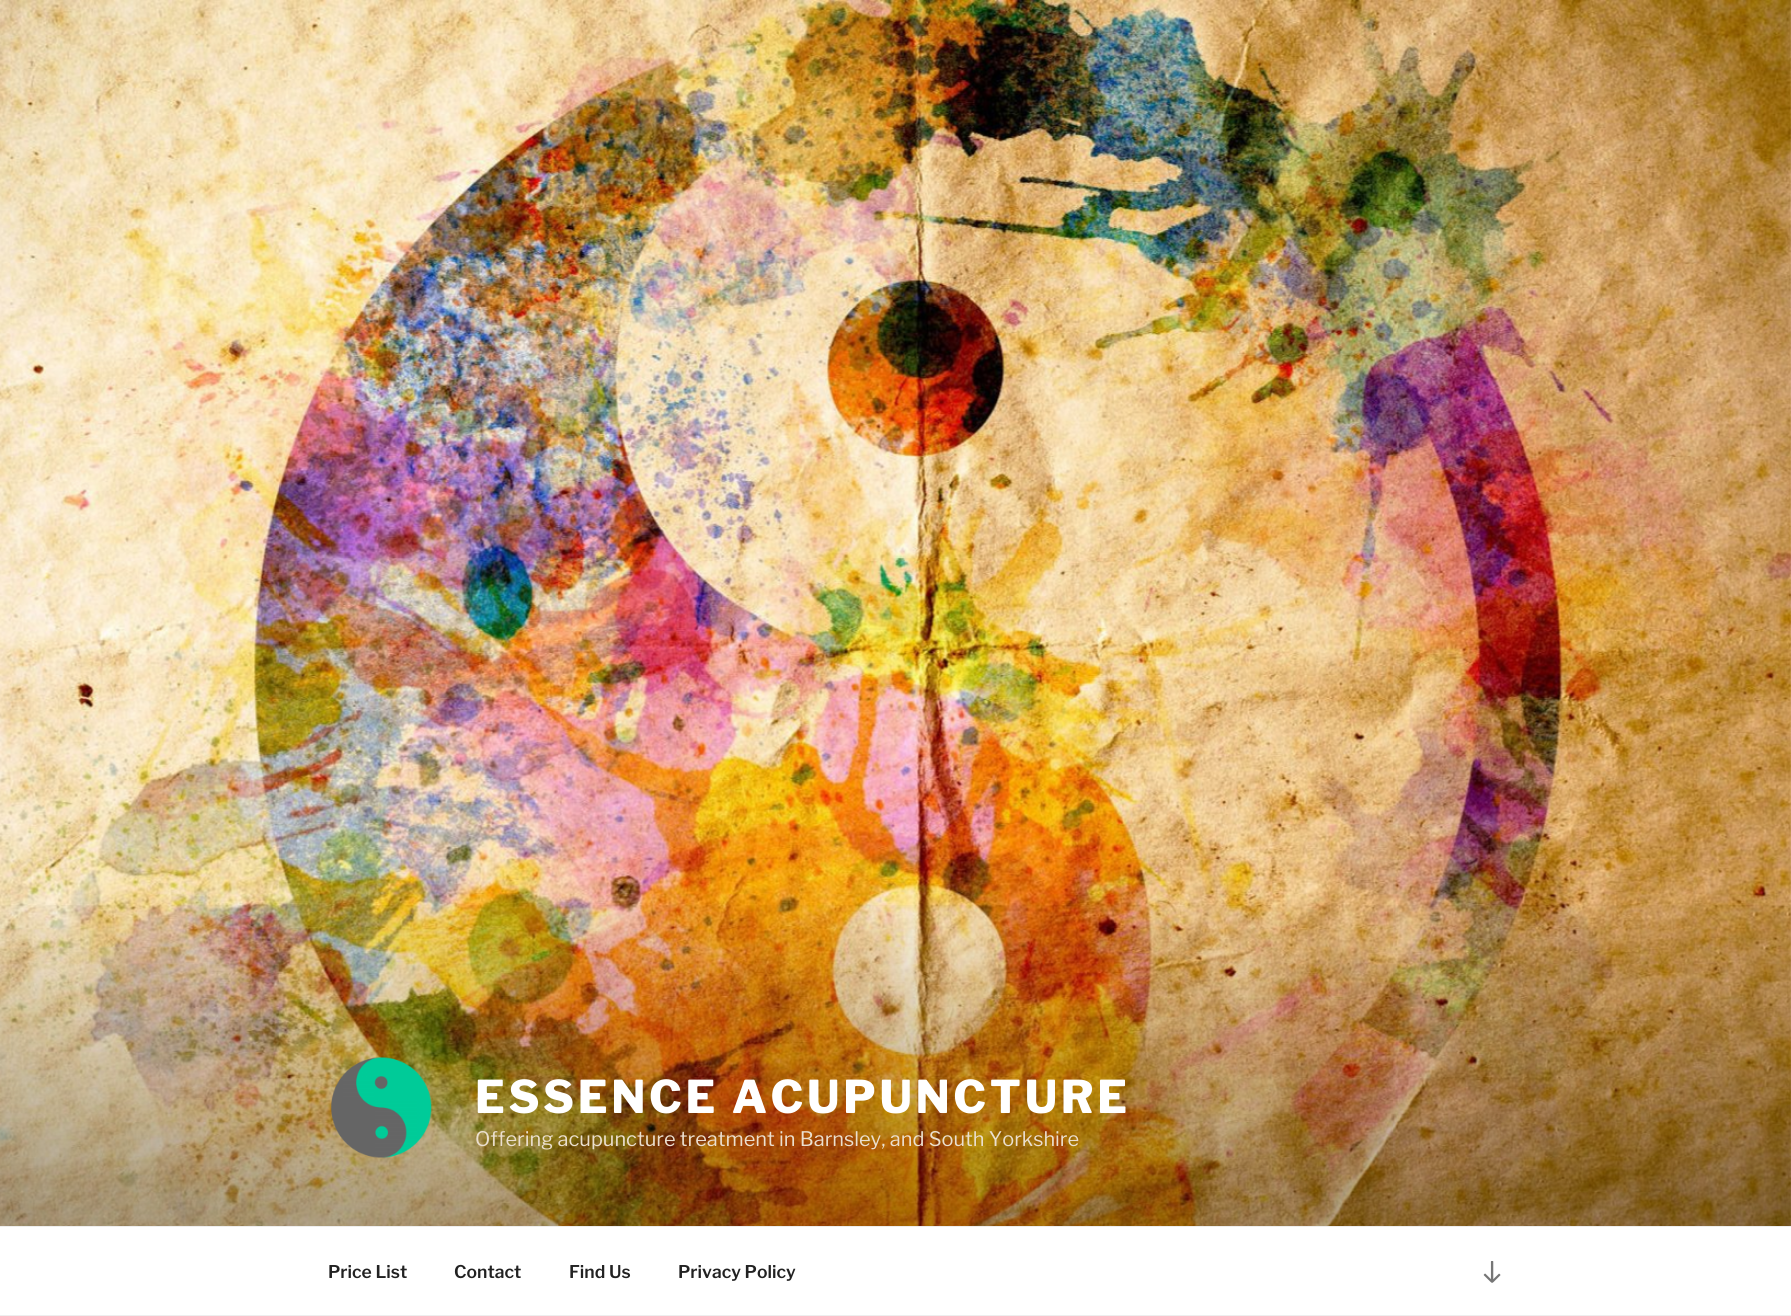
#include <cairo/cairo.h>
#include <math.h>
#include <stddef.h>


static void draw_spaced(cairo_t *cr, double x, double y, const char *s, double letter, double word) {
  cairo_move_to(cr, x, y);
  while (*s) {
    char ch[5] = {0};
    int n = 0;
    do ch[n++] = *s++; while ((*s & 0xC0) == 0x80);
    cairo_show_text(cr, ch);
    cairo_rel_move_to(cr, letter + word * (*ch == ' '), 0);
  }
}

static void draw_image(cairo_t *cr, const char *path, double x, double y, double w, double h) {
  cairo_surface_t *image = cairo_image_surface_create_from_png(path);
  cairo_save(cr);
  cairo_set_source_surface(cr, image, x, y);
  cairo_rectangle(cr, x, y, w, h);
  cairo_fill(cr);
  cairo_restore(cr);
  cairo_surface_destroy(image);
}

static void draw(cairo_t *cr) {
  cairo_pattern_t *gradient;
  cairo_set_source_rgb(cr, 1, 1, 1);
  cairo_paint(cr);
  draw_image(cr, "images/1.png", 0, 0, 1791, 1226);
  gradient = cairo_pattern_create_linear(896, 882, 896, 1316);
  cairo_pattern_add_color_stop_rgba(gradient, 0, 0, 0, 0, 0);
  cairo_pattern_add_color_stop_rgba(gradient, 0.75, 0, 0, 0, 0.3);
  cairo_pattern_add_color_stop_rgba(gradient, 1, 0, 0, 0, 0.3);
  cairo_set_source(cr, gradient);
  cairo_pattern_destroy(gradient);
  cairo_rectangle(cr, 0, 905, 1791, 321);
  cairo_fill(cr);
  draw_image(cr, "images/2.png", 331, 1057, 101, 101);
  cairo_set_source_rgb(cr, 238 / 255.0, 238 / 255.0, 238 / 255.0);
  cairo_rectangle(cr, 0, 1226, 1791, 1);
  cairo_fill(cr);
  cairo_rectangle(cr, 0, 1315, 1791, 1);
  cairo_fill(cr);
  draw_image(cr, "images/3.png", 1483, 1261, 18, 22);
  cairo_select_font_face(cr, "Libre Franklin Thin", CAIRO_FONT_SLANT_NORMAL, CAIRO_FONT_WEIGHT_NORMAL);
  cairo_set_font_size(cr, 45);
  cairo_set_source_rgb(cr, 1, 1, 1);
  draw_spaced(cr, 475, 1113, "ESSENCE ACUPUNCTURE", 3.6, 0);
  cairo_select_font_face(cr, "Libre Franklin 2 Thin", CAIRO_FONT_SLANT_NORMAL, CAIRO_FONT_WEIGHT_NORMAL);
  cairo_set_font_size(cr, 20);
  cairo_set_source_rgb(cr, 235 / 255.0, 223 / 255.0, 207 / 255.0);
  cairo_move_to(cr, 475, 1146);
  cairo_show_text(cr, "Offering acupuncture treatment in Barnsley, and South Yorkshire");
  cairo_select_font_face(cr, "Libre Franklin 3 Thin", CAIRO_FONT_SLANT_NORMAL, CAIRO_FONT_WEIGHT_NORMAL);
  cairo_set_font_size(cr, 17.5);
  cairo_set_source_rgb(cr, 34 / 255.0, 34 / 255.0, 34 / 255.0);
  cairo_move_to(cr, 328, 1278);
  cairo_show_text(cr, "Price List");
  cairo_move_to(cr, 454, 1278);
  cairo_show_text(cr, "Contact");
  cairo_move_to(cr, 569, 1278);
  cairo_show_text(cr, "Find Us");
  cairo_move_to(cr, 678, 1278);
  cairo_show_text(cr, "Privacy Policy");
}

int main(void) {
  cairo_surface_t *surface = cairo_image_surface_create(CAIRO_FORMAT_RGB24, 1791, 1316);
  cairo_t *cr = cairo_create(surface);
  cairo_font_options_t *options = cairo_font_options_create();
  cairo_font_options_set_hint_metrics(options, CAIRO_HINT_METRICS_OFF);
  cairo_font_options_set_hint_style(options, CAIRO_HINT_STYLE_NONE);
  cairo_set_font_options(cr, options);
  cairo_set_miter_limit(cr, 4);
  draw(cr);
  cairo_surface_write_to_png(surface, "out.png");
  cairo_font_options_destroy(options);
  cairo_destroy(cr);
  cairo_surface_destroy(surface);
  return 0;
}
